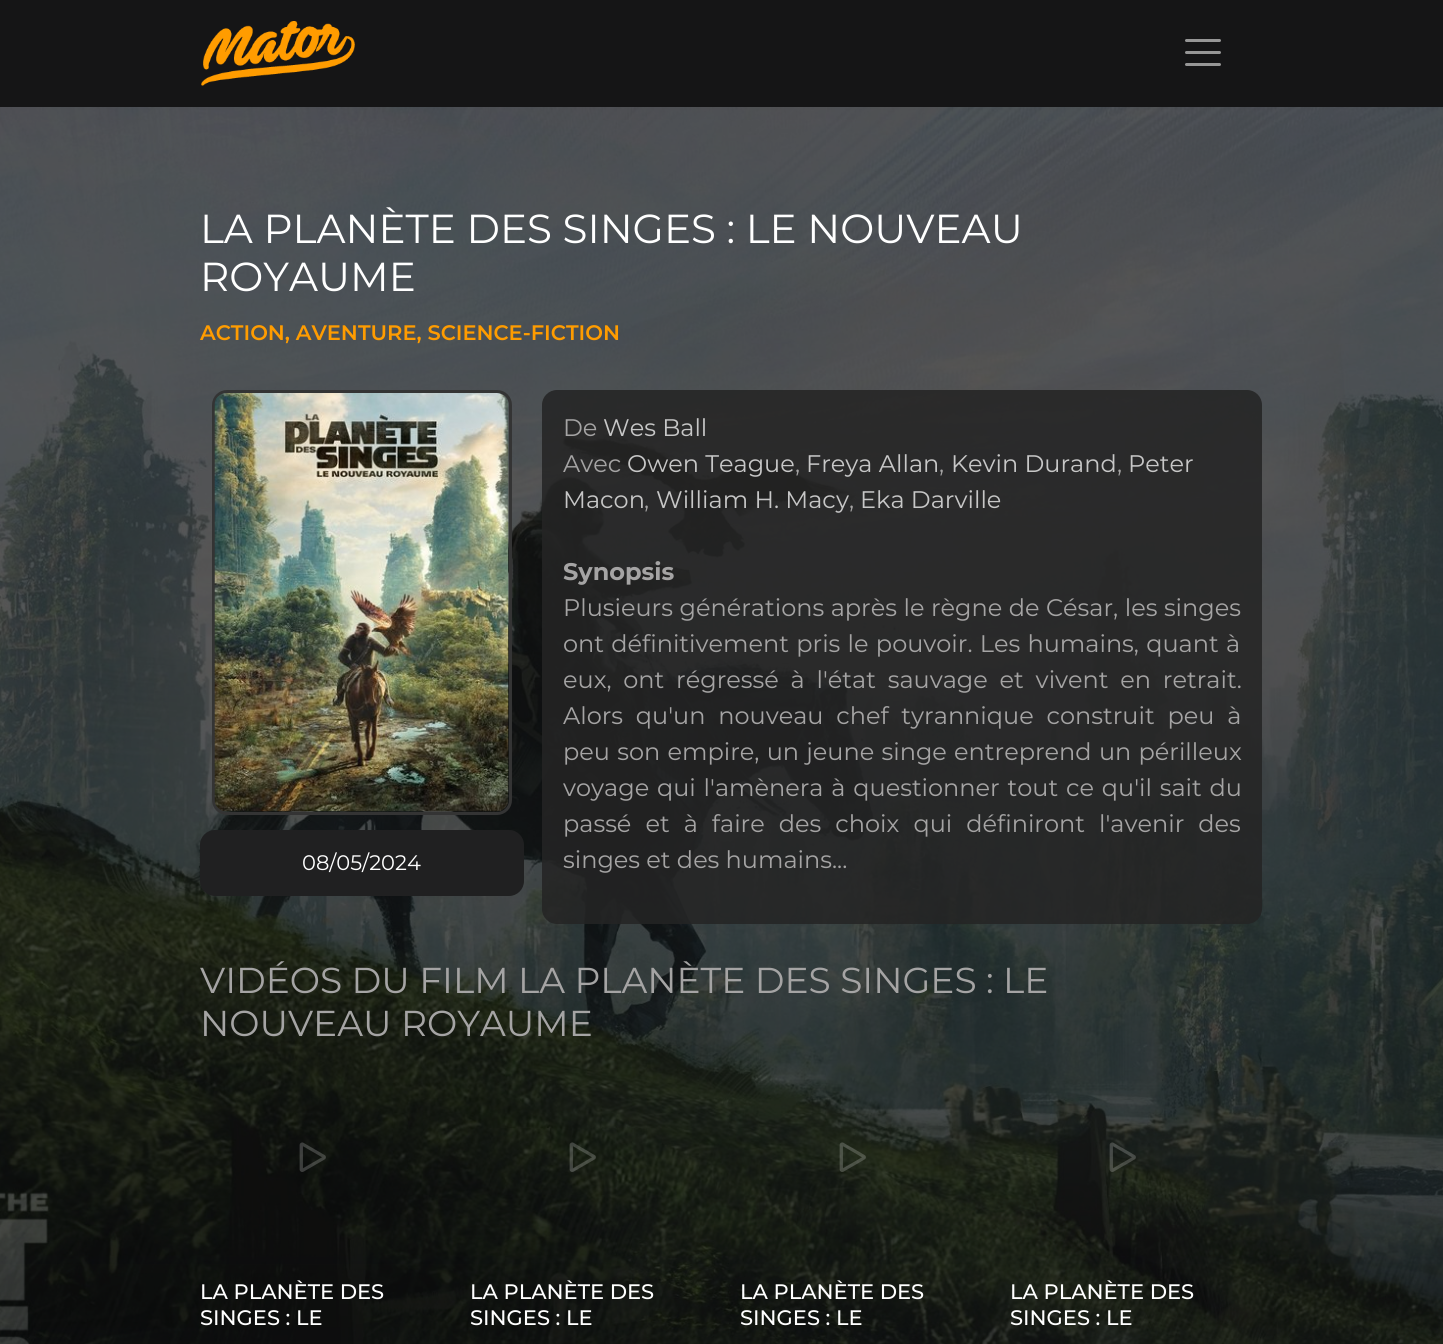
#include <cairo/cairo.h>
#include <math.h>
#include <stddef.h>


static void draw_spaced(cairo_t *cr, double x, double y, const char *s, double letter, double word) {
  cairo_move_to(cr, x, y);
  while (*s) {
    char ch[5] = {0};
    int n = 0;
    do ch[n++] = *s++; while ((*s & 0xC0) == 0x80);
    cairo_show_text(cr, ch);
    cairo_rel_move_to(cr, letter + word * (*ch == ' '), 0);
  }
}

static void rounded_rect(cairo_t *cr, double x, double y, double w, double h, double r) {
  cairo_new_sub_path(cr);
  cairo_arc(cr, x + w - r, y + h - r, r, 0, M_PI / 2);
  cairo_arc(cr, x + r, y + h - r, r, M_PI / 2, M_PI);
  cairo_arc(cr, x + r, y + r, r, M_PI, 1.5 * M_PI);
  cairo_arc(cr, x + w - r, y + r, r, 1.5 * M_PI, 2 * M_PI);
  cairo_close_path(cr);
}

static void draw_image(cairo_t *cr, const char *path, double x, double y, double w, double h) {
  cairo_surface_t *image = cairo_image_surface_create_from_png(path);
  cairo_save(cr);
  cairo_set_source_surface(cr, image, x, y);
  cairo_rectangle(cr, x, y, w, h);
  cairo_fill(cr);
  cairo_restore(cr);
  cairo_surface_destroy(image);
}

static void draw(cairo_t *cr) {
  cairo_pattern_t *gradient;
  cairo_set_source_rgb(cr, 13 / 255.0, 13 / 255.0, 14 / 255.0);
  cairo_paint(cr);
  cairo_set_source_rgb(cr, 21 / 255.0, 21 / 255.0, 22 / 255.0);
  cairo_rectangle(cr, 0, 0, 1443, 107);
  cairo_fill(cr);
  draw_image(cr, "images/1.png", 201, 21, 154, 65);
  cairo_new_path(cr);
  cairo_move_to(cr, 1186.5, 40.5);
  cairo_line_to(cr, 1219.5, 40.5);
  cairo_move_to(cr, 1186.5, 52.5);
  cairo_line_to(cr, 1219.5, 52.5);
  cairo_move_to(cr, 1186.5, 64.5);
  cairo_line_to(cr, 1219.5, 64.5);
  cairo_set_source_rgb(cr, 150 / 255.0, 150 / 255.0, 150 / 255.0);
  cairo_set_line_width(cr, 3);
  cairo_set_line_cap(cr, CAIRO_LINE_CAP_ROUND);
  cairo_stroke(cr);
  draw_image(cr, "images/2.png", 0, 107, 1443, 1237);
  gradient = cairo_pattern_create_linear(722, 1149, 722, 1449);
  cairo_pattern_add_color_stop_rgba(gradient, 0, 13 / 255.0, 13 / 255.0, 14 / 255.0, 0);
  cairo_pattern_add_color_stop_rgba(gradient, 1, 13 / 255.0, 13 / 255.0, 14 / 255.0, 0.3);
  cairo_set_source(cr, gradient);
  cairo_pattern_destroy(gradient);
  cairo_rectangle(cr, 0, 1198, 1443, 146);
  cairo_fill(cr);
  rounded_rect(cr, 213.5, 391.5, 297, 422, 13.5);
  cairo_set_source_rgb(cr, 52 / 255.0, 52 / 255.0, 52 / 255.0);
  cairo_set_line_cap(cr, CAIRO_LINE_CAP_BUTT);
  cairo_stroke(cr);
  draw_image(cr, "images/3.png", 214, 393, 295, 419);
  cairo_set_source_rgb(cr, 32 / 255.0, 32 / 255.0, 33 / 255.0);
  rounded_rect(cr, 200, 830, 324, 66, 15);
  cairo_fill(cr);
  cairo_set_source_rgba(cr, 36 / 255.0, 36 / 255.0, 36 / 255.0, 0.86);
  rounded_rect(cr, 542, 390, 720, 534, 15);
  cairo_fill(cr);
  draw_image(cr, "images/4.png", 299, 1142, 27, 30);
  draw_image(cr, "images/5.png", 569, 1142, 27, 30);
  draw_image(cr, "images/6.png", 839, 1142, 27, 30);
  draw_image(cr, "images/7.png", 1109, 1142, 27, 30);
  cairo_select_font_face(cr, "Montserrat", CAIRO_FONT_SLANT_NORMAL, CAIRO_FONT_WEIGHT_NORMAL);
  cairo_set_font_size(cr, 40.5);
  cairo_set_source_rgb(cr, 1, 1, 1);
  cairo_move_to(cr, 200, 243);
  cairo_show_text(cr, "LA PLANÈTE DES SINGES : LE NOUVEAU");
  cairo_move_to(cr, 200, 291);
  cairo_show_text(cr, "ROYAUME");
  cairo_select_font_face(cr, "Montserrat SemiBold", CAIRO_FONT_SLANT_NORMAL, CAIRO_FONT_WEIGHT_NORMAL);
  cairo_set_font_size(cr, 21);
  cairo_set_source_rgb(cr, 1, 156 / 255.0, 0);
  cairo_move_to(cr, 200, 340);
  cairo_show_text(cr, "ACTION, AVENTURE, SCIENCE-FICTION");
  cairo_select_font_face(cr, "Montserrat", CAIRO_FONT_SLANT_NORMAL, CAIRO_FONT_WEIGHT_NORMAL);
  cairo_set_source_rgb(cr, 1, 1, 1);
  cairo_move_to(cr, 302, 870);
  cairo_show_text(cr, "08/05/2024");
  cairo_set_font_size(cr, 24);
  cairo_set_source_rgb(cr, 165 / 255.0, 164 / 255.0, 164 / 255.0);
  cairo_move_to(cr, 563, 436);
  cairo_show_text(cr, "De");
  cairo_set_source_rgb(cr, 199 / 255.0, 199 / 255.0, 199 / 255.0);
  cairo_move_to(cr, 603, 436);
  cairo_show_text(cr, "Wes Ball");
  cairo_set_source_rgb(cr, 165 / 255.0, 164 / 255.0, 164 / 255.0);
  cairo_move_to(cr, 563, 472);
  cairo_show_text(cr, "Avec");
  cairo_set_source_rgb(cr, 199 / 255.0, 199 / 255.0, 199 / 255.0);
  cairo_move_to(cr, 627, 472);
  cairo_show_text(cr, "Owen Teague");
  cairo_set_source_rgb(cr, 165 / 255.0, 164 / 255.0, 164 / 255.0);
  cairo_move_to(cr, 795, 472);
  cairo_show_text(cr, ",");
  cairo_set_source_rgb(cr, 199 / 255.0, 199 / 255.0, 199 / 255.0);
  cairo_move_to(cr, 806, 472);
  cairo_show_text(cr, "Freya Allan");
  cairo_set_source_rgb(cr, 165 / 255.0, 164 / 255.0, 164 / 255.0);
  cairo_move_to(cr, 939, 472);
  cairo_show_text(cr, ",");
  cairo_set_source_rgb(cr, 199 / 255.0, 199 / 255.0, 199 / 255.0);
  cairo_move_to(cr, 951, 472);
  cairo_show_text(cr, "Kevin Durand");
  cairo_set_source_rgb(cr, 165 / 255.0, 164 / 255.0, 164 / 255.0);
  cairo_move_to(cr, 1117, 472);
  cairo_show_text(cr, ",");
  cairo_set_source_rgb(cr, 199 / 255.0, 199 / 255.0, 199 / 255.0);
  cairo_move_to(cr, 1128, 472);
  cairo_show_text(cr, "Peter");
  cairo_move_to(cr, 563, 508);
  cairo_show_text(cr, "Macon");
  cairo_set_source_rgb(cr, 165 / 255.0, 164 / 255.0, 164 / 255.0);
  cairo_move_to(cr, 644, 508);
  cairo_show_text(cr, ",");
  cairo_set_source_rgb(cr, 199 / 255.0, 199 / 255.0, 199 / 255.0);
  cairo_move_to(cr, 656, 508);
  cairo_show_text(cr, "William H. Macy");
  cairo_set_source_rgb(cr, 165 / 255.0, 164 / 255.0, 164 / 255.0);
  cairo_move_to(cr, 849, 508);
  cairo_show_text(cr, ",");
  cairo_set_source_rgb(cr, 199 / 255.0, 199 / 255.0, 199 / 255.0);
  cairo_move_to(cr, 860, 508);
  cairo_show_text(cr, "Eka Darville");
  cairo_select_font_face(cr, "Montserrat", CAIRO_FONT_SLANT_NORMAL, CAIRO_FONT_WEIGHT_BOLD);
  cairo_set_source_rgb(cr, 165 / 255.0, 164 / 255.0, 164 / 255.0);
  cairo_move_to(cr, 563, 580);
  cairo_show_text(cr, "Synopsis");
  cairo_select_font_face(cr, "Montserrat", CAIRO_FONT_SLANT_NORMAL, CAIRO_FONT_WEIGHT_NORMAL);
  draw_spaced(cr, 563, 616, "Plusieurs générations après le règne de César, les singes", 0, 0.25);
  draw_spaced(cr, 563, 652, "ont définitivement pris le pouvoir. Les humains, quant à", 0, 1);
  draw_spaced(cr, 563, 688, "eux, ont régressé à l'état sauvage et vivent en retrait.", 0, 5.5);
  draw_spaced(cr, 563, 724, "Alors qu'un nouveau chef tyrannique construit peu à", 0, 6.5);
  draw_spaced(cr, 563, 760, "peu son empire, un jeune singe entreprend un périlleux", 0, 1);
  draw_spaced(cr, 563, 796, "voyage qui l'amènera à questionner tout ce qu'il sait du", 0, 1.5);
  draw_spaced(cr, 563, 832, "passé et à faire des choix qui définiront l'avenir des", 0, 7.75);
  cairo_move_to(cr, 563, 868);
  cairo_show_text(cr, "singes et des humains...");
  cairo_set_font_size(cr, 36);
  cairo_move_to(cr, 200, 993);
  cairo_show_text(cr, "VIDÉOS DU FILM LA PLANÈTE DES SINGES : LE");
  cairo_move_to(cr, 200, 1036);
  cairo_show_text(cr, "NOUVEAU ROYAUME");
  cairo_select_font_face(cr, "Montserrat Medium", CAIRO_FONT_SLANT_NORMAL, CAIRO_FONT_WEIGHT_NORMAL);
  cairo_set_font_size(cr, 21);
  cairo_set_source_rgb(cr, 1, 1, 1);
  cairo_move_to(cr, 200, 1299);
  cairo_show_text(cr, "LA PLANÈTE DES");
  cairo_move_to(cr, 200, 1325);
  cairo_show_text(cr, "SINGES : LE");
  cairo_move_to(cr, 470, 1299);
  cairo_show_text(cr, "LA PLANÈTE DES");
  cairo_move_to(cr, 470, 1325);
  cairo_show_text(cr, "SINGES : LE");
  cairo_move_to(cr, 740, 1299);
  cairo_show_text(cr, "LA PLANÈTE DES");
  cairo_move_to(cr, 740, 1325);
  cairo_show_text(cr, "SINGES : LE");
  cairo_move_to(cr, 1010, 1299);
  cairo_show_text(cr, "LA PLANÈTE DES");
  cairo_move_to(cr, 1010, 1325);
  cairo_show_text(cr, "SINGES : LE");
}

int main(void) {
  cairo_surface_t *surface = cairo_image_surface_create(CAIRO_FORMAT_RGB24, 1443, 1344);
  cairo_t *cr = cairo_create(surface);
  cairo_font_options_t *options = cairo_font_options_create();
  cairo_font_options_set_hint_metrics(options, CAIRO_HINT_METRICS_OFF);
  cairo_font_options_set_hint_style(options, CAIRO_HINT_STYLE_NONE);
  cairo_set_font_options(cr, options);
  cairo_set_miter_limit(cr, 4);
  draw(cr);
  cairo_surface_write_to_png(surface, "out.png");
  cairo_font_options_destroy(options);
  cairo_destroy(cr);
  cairo_surface_destroy(surface);
  return 0;
}
